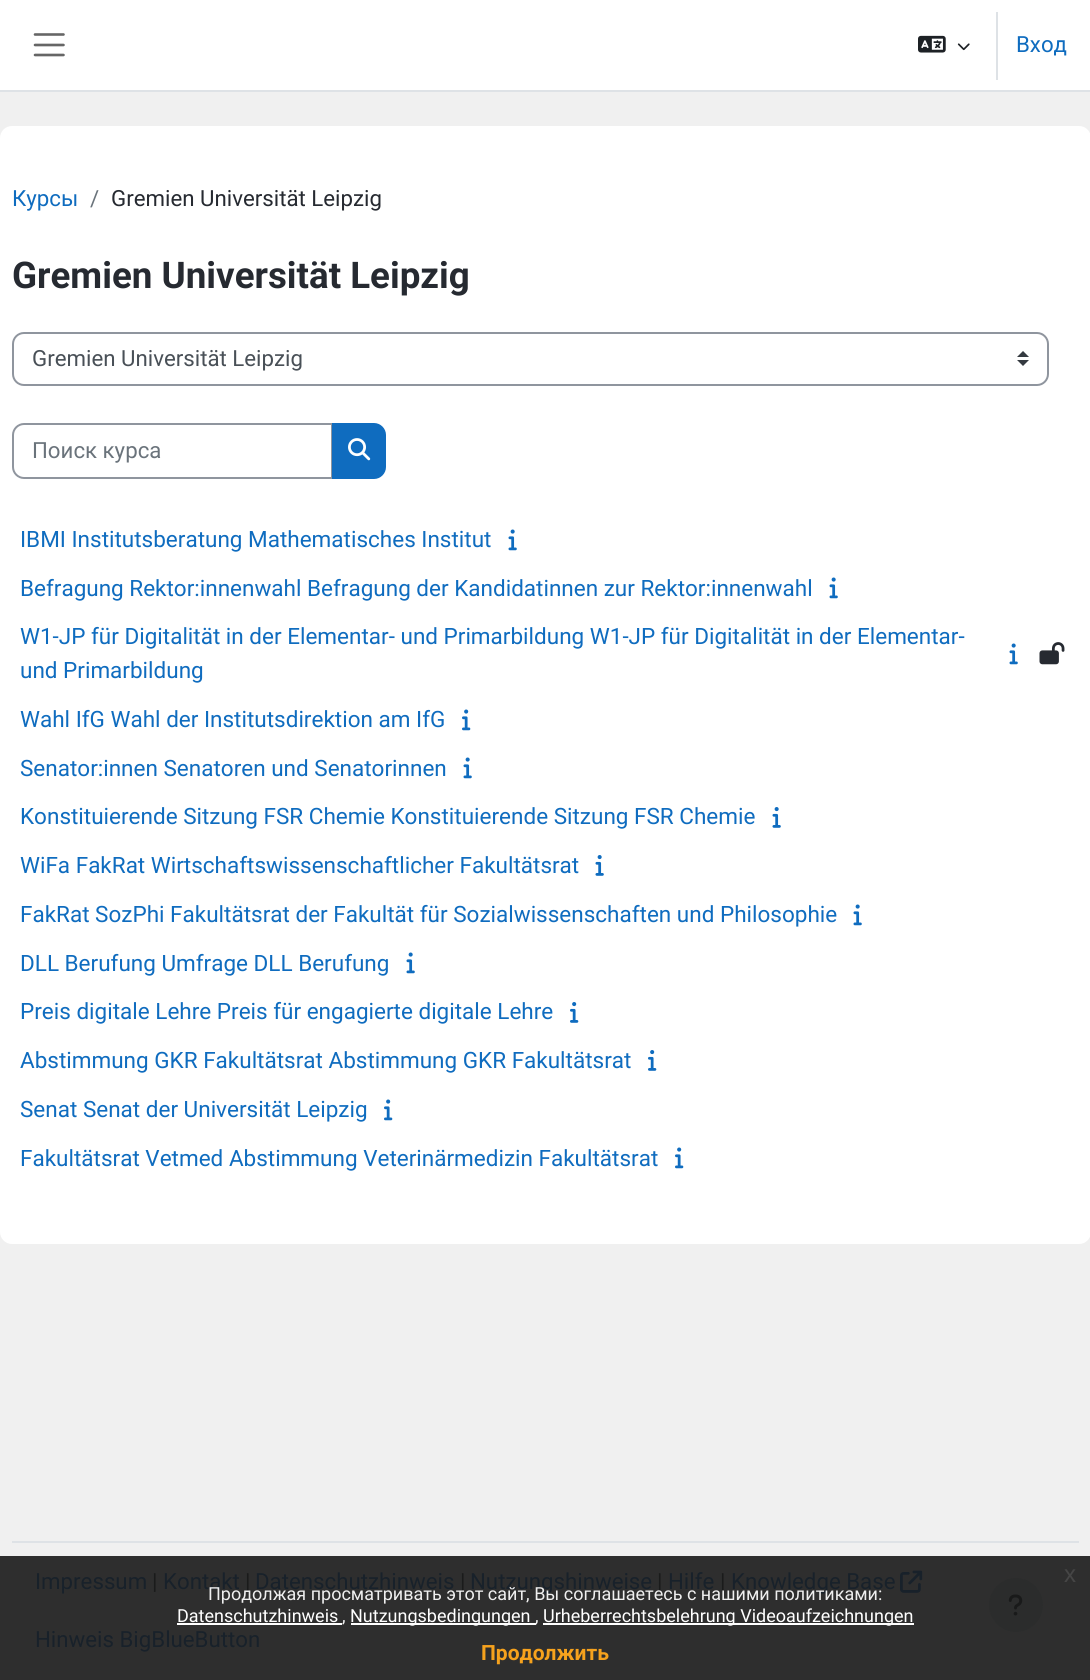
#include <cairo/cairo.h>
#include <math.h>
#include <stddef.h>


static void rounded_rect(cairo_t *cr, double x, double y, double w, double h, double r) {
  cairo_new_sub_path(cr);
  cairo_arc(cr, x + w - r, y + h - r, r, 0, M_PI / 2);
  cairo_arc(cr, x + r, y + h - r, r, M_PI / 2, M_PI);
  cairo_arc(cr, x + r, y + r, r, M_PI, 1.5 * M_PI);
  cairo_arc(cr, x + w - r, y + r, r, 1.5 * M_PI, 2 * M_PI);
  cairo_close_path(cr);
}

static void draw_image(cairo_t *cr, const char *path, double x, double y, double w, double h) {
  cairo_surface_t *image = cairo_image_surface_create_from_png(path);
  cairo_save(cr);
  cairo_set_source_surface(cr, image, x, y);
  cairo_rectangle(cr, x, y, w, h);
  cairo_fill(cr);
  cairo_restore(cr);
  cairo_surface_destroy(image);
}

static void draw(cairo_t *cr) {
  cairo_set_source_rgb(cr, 240 / 255.0, 240 / 255.0, 240 / 255.0);
  cairo_paint(cr);
  cairo_set_source_rgb(cr, 46 / 255.0, 46 / 255.0, 46 / 255.0);
  cairo_rectangle(cr, 0, 1556, 1090, 124);
  cairo_fill(cr);
  cairo_set_source_rgb(cr, 1, 1, 1);
  cairo_rectangle(cr, 0, 0, 1090, 90);
  cairo_fill(cr);
  cairo_set_source_rgb(cr, 222 / 255.0, 226 / 255.0, 230 / 255.0);
  cairo_rectangle(cr, 0, 90, 1090, 2);
  cairo_fill(cr);
  cairo_new_path(cr);
  cairo_move_to(cr, 35, 34.5);
  cairo_line_to(cr, 63.5, 34.5);
  cairo_move_to(cr, 35, 45);
  cairo_line_to(cr, 63.5, 45);
  cairo_move_to(cr, 35, 55);
  cairo_line_to(cr, 63.5, 55);
  cairo_set_source_rgb(cr, 102 / 255.0, 102 / 255.0, 102 / 255.0);
  cairo_set_line_width(cr, 2.6);
  cairo_set_line_cap(cr, CAIRO_LINE_CAP_ROUND);
  cairo_stroke(cr);
  draw_image(cr, "images/1.png", 918, 35, 28, 18);
  draw_image(cr, "images/2.png", 957, 43, 13, 8);
  cairo_set_source_rgb(cr, 222 / 255.0, 226 / 255.0, 230 / 255.0);
  cairo_rectangle(cr, 996, 12, 2, 68);
  cairo_fill(cr);
  cairo_set_source_rgb(cr, 1, 1, 1);
  rounded_rect(cr, 0, 126, 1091, 1118, 12);
  cairo_fill(cr);
  draw_image(cr, "images/3.png", 1017, 351, 12, 15);
  rounded_rect(cr, 13, 333, 1035, 52, 11);
  cairo_set_source_rgb(cr, 143 / 255.0, 149 / 255.0, 158 / 255.0);
  cairo_set_line_width(cr, 2);
  cairo_set_line_cap(cr, CAIRO_LINE_CAP_BUTT);
  cairo_stroke(cr);
  cairo_new_path(cr);
  cairo_move_to(cr, 24, 424);
  cairo_line_to(cr, 332, 424);
  cairo_line_to(cr, 332, 478);
  cairo_line_to(cr, 24, 478);
  cairo_curve_to(cr, 18, 478, 13, 473, 13, 467);
  cairo_line_to(cr, 13, 435);
  cairo_curve_to(cr, 13, 429, 18, 424, 24, 424);
  cairo_close_path(cr);
  cairo_stroke(cr);
  cairo_set_source_rgb(cr, 15 / 255.0, 108 / 255.0, 191 / 255.0);
  cairo_new_path(cr);
  cairo_move_to(cr, 333, 424);
  cairo_line_to(cr, 374, 424);
  cairo_curve_to(cr, 380, 424, 385, 429, 385, 435);
  cairo_line_to(cr, 385, 467);
  cairo_curve_to(cr, 385, 473, 380, 478, 374, 478);
  cairo_line_to(cr, 333, 478);
  cairo_close_path(cr);
  cairo_fill_preserve(cr);
  cairo_stroke(cr);
  draw_image(cr, "images/4.png", 348, 438, 23, 23);
  draw_image(cr, "images/5.png", 508, 529, 9, 22);
  draw_image(cr, "images/5.png", 829, 577, 9, 22);
  draw_image(cr, "images/5.png", 1009, 643, 9, 22);
  draw_image(cr, "images/6.png", 1039, 642, 26, 23);
  draw_image(cr, "images/7.png", 462, 709, 9, 22);
  draw_image(cr, "images/5.png", 463, 757, 9, 22);
  draw_image(cr, "images/8.png", 772, 807, 9, 21);
  draw_image(cr, "images/8.png", 595, 855, 9, 21);
  draw_image(cr, "images/5.png", 853, 904, 9, 22);
  draw_image(cr, "images/5.png", 406, 952, 9, 22);
  draw_image(cr, "images/9.png", 570, 1002, 9, 21);
  draw_image(cr, "images/9.png", 648, 1050, 9, 21);
  draw_image(cr, "images/7.png", 384, 1099, 9, 22);
  draw_image(cr, "images/7.png", 675, 1147, 9, 22);
  cairo_set_source_rgb(cr, 222 / 255.0, 226 / 255.0, 230 / 255.0);
  cairo_rectangle(cr, 12, 1541, 1067, 2);
  cairo_fill(cr);
  draw_image(cr, "images/10.png", 900, 1570, 23, 23);
  cairo_set_source_rgb(cr, 43 / 255.0, 44 / 255.0, 44 / 255.0);
  cairo_arc(cr, 1016, 1605, 27, 0, 2 * M_PI);
  cairo_fill(cr);
  draw_image(cr, "images/11.png", 1008, 1594, 15, 22);
  cairo_set_source_rgb(cr, 1, 1, 1);
  cairo_rectangle(cr, 177, 1623, 165, 2);
  cairo_fill(cr);
  cairo_rectangle(cr, 351, 1623, 185, 2);
  cairo_fill(cr);
  cairo_rectangle(cr, 543, 1623, 371, 2);
  cairo_fill(cr);
  cairo_select_font_face(cr, "Roboto", CAIRO_FONT_SLANT_NORMAL, CAIRO_FONT_WEIGHT_NORMAL);
  cairo_set_font_size(cr, 22.25);
  cairo_set_source_rgb(cr, 15 / 255.0, 108 / 255.0, 191 / 255.0);
  cairo_move_to(cr, 1016, 52);
  cairo_show_text(cr, "Вход");
  cairo_move_to(cr, 12, 206);
  cairo_show_text(cr, "Курсы");
  cairo_set_source_rgb(cr, 106 / 255.0, 115 / 255.0, 123 / 255.0);
  cairo_move_to(cr, 90, 206);
  cairo_show_text(cr, "/");
  cairo_set_source_rgb(cr, 38 / 255.0, 42 / 255.0, 49 / 255.0);
  cairo_move_to(cr, 111, 206);
  cairo_show_text(cr, "Gremien Universität Leipzig");
  cairo_select_font_face(cr, "Roboto", CAIRO_FONT_SLANT_NORMAL, CAIRO_FONT_WEIGHT_BOLD);
  cairo_set_font_size(cr, 36.75);
  cairo_move_to(cr, 12, 288);
  cairo_show_text(cr, "Gremien Universität Leipzig");
  cairo_select_font_face(cr, "Roboto", CAIRO_FONT_SLANT_NORMAL, CAIRO_FONT_WEIGHT_NORMAL);
  cairo_set_font_size(cr, 22.25);
  cairo_set_source_rgb(cr, 73 / 255.0, 80 / 255.0, 87 / 255.0);
  cairo_move_to(cr, 32, 366);
  cairo_show_text(cr, "Gremien Universität Leipzig");
  cairo_set_source_rgb(cr, 106 / 255.0, 115 / 255.0, 123 / 255.0);
  cairo_move_to(cr, 32, 458);
  cairo_show_text(cr, "Поиск курса");
  cairo_set_font_size(cr, 22.5);
  cairo_set_source_rgb(cr, 15 / 255.0, 108 / 255.0, 191 / 255.0);
  cairo_move_to(cr, 20, 547);
  cairo_show_text(cr, "IBMI Institutsberatung Mathematisches Institut");
  cairo_move_to(cr, 20, 596);
  cairo_show_text(cr, "Befragung Rektor:innenwahl Befragung der Kandidatinnen zur Rektor:innenwahl");
  cairo_move_to(cr, 20, 644);
  cairo_show_text(cr, "W1-JP für Digitalität in der Elementar- und Primarbildung W1-JP für Digitalität in der Elementar-");
  cairo_move_to(cr, 20, 678);
  cairo_show_text(cr, "und Primarbildung");
  cairo_move_to(cr, 20, 727);
  cairo_show_text(cr, "Wahl IfG Wahl der Institutsdirektion am IfG");
  cairo_move_to(cr, 20, 776);
  cairo_show_text(cr, "Senator:innen Senatoren und Senatorinnen");
  cairo_move_to(cr, 20, 824);
  cairo_show_text(cr, "Konstituierende Sitzung FSR Chemie Konstituierende Sitzung FSR Chemie");
  cairo_move_to(cr, 20, 873);
  cairo_show_text(cr, "WiFa FakRat Wirtschaftswissenschaftlicher Fakultätsrat");
  cairo_move_to(cr, 20, 922);
  cairo_show_text(cr, "FakRat SozPhi Fakultätsrat der Fakultät für Sozialwissenschaften und Philosophie");
  cairo_move_to(cr, 20, 971);
  cairo_show_text(cr, "DLL Berufung Umfrage DLL Berufung");
  cairo_move_to(cr, 20, 1019);
  cairo_show_text(cr, "Preis digitale Lehre Preis für engagierte digitale Lehre");
  cairo_move_to(cr, 20, 1068);
  cairo_show_text(cr, "Abstimmung GKR Fakultätsrat Abstimmung GKR Fakultätsrat");
  cairo_move_to(cr, 20, 1117);
  cairo_show_text(cr, "Senat Senat der Universität Leipzig");
  cairo_move_to(cr, 20, 1166);
  cairo_show_text(cr, "Fakultätsrat Vetmed Abstimmung Veterinärmedizin Fakultätsrat");
  cairo_set_font_size(cr, 22.25);
  cairo_set_source_rgb(cr, 24 / 255.0, 33 / 255.0, 42 / 255.0);
  cairo_move_to(cr, 35, 1589);
  cairo_show_text(cr, "Impressum");
  cairo_set_source_rgb(cr, 26 / 255.0, 27 / 255.0, 27 / 255.0);
  cairo_move_to(cr, 152, 1589);
  cairo_show_text(cr, "|");
  cairo_set_source_rgb(cr, 24 / 255.0, 33 / 255.0, 42 / 255.0);
  cairo_move_to(cr, 163, 1589);
  cairo_show_text(cr, "Kontakt");
  cairo_set_source_rgb(cr, 26 / 255.0, 27 / 255.0, 27 / 255.0);
  cairo_move_to(cr, 245, 1589);
  cairo_show_text(cr, "|");
  cairo_set_source_rgb(cr, 24 / 255.0, 33 / 255.0, 42 / 255.0);
  cairo_move_to(cr, 255, 1589);
  cairo_show_text(cr, "Datenschutzhinweis");
  cairo_set_source_rgb(cr, 26 / 255.0, 27 / 255.0, 27 / 255.0);
  cairo_move_to(cr, 460, 1589);
  cairo_show_text(cr, "|");
  cairo_set_source_rgb(cr, 24 / 255.0, 33 / 255.0, 42 / 255.0);
  cairo_move_to(cr, 470, 1589);
  cairo_show_text(cr, "Nutzungshinweise");
  cairo_set_source_rgb(cr, 26 / 255.0, 27 / 255.0, 27 / 255.0);
  cairo_move_to(cr, 657, 1589);
  cairo_show_text(cr, "|");
  cairo_set_source_rgb(cr, 24 / 255.0, 33 / 255.0, 42 / 255.0);
  cairo_move_to(cr, 668, 1589);
  cairo_show_text(cr, "Hilfe");
  cairo_set_source_rgb(cr, 26 / 255.0, 27 / 255.0, 27 / 255.0);
  cairo_move_to(cr, 720, 1589);
  cairo_show_text(cr, "|");
  cairo_set_source_rgb(cr, 24 / 255.0, 33 / 255.0, 42 / 255.0);
  cairo_move_to(cr, 731, 1589);
  cairo_show_text(cr, "Knowledge Base");
  cairo_move_to(cr, 35, 1647);
  cairo_show_text(cr, "Hinweis BigBlueButton");
  cairo_select_font_face(cr, "Liberation Sans", CAIRO_FONT_SLANT_NORMAL, CAIRO_FONT_WEIGHT_NORMAL);
  cairo_set_font_size(cr, 24);
  cairo_set_source_rgb(cr, 70 / 255.0, 70 / 255.0, 70 / 255.0);
  cairo_move_to(cr, 1064, 1582);
  cairo_show_text(cr, "x");
  cairo_select_font_face(cr, "Roboto", CAIRO_FONT_SLANT_NORMAL, CAIRO_FONT_WEIGHT_NORMAL);
  cairo_set_font_size(cr, 18);
  cairo_set_source_rgb(cr, 239 / 255.0, 239 / 255.0, 239 / 255.0);
  cairo_move_to(cr, 208, 1600);
  cairo_show_text(cr, "Продолжая просматривать этот сайт, Вы соглашаетесь с нашими политиками:");
  cairo_set_source_rgb(cr, 1, 1, 1);
  cairo_move_to(cr, 177, 1622);
  cairo_show_text(cr, "Datenschutzhinweis");
  cairo_set_source_rgb(cr, 239 / 255.0, 239 / 255.0, 239 / 255.0);
  cairo_move_to(cr, 342, 1622);
  cairo_show_text(cr, ",");
  cairo_set_source_rgb(cr, 1, 1, 1);
  cairo_move_to(cr, 350, 1622);
  cairo_show_text(cr, "Nutzungsbedingungen");
  cairo_set_source_rgb(cr, 239 / 255.0, 239 / 255.0, 239 / 255.0);
  cairo_move_to(cr, 535, 1622);
  cairo_show_text(cr, ",");
  cairo_set_source_rgb(cr, 1, 1, 1);
  cairo_move_to(cr, 543, 1622);
  cairo_show_text(cr, "Urheberrechtsbelehrung Videoaufzeichnungen");
  cairo_select_font_face(cr, "Roboto", CAIRO_FONT_SLANT_NORMAL, CAIRO_FONT_WEIGHT_BOLD);
  cairo_set_font_size(cr, 21);
  cairo_set_source_rgb(cr, 246 / 255.0, 162 / 255.0, 29 / 255.0);
  cairo_move_to(cr, 481, 1660);
  cairo_show_text(cr, "Продолжить");
}

int main(void) {
  cairo_surface_t *surface = cairo_image_surface_create(CAIRO_FORMAT_RGB24, 1090, 1680);
  cairo_t *cr = cairo_create(surface);
  cairo_font_options_t *options = cairo_font_options_create();
  cairo_font_options_set_hint_metrics(options, CAIRO_HINT_METRICS_OFF);
  cairo_font_options_set_hint_style(options, CAIRO_HINT_STYLE_NONE);
  cairo_set_font_options(cr, options);
  cairo_set_miter_limit(cr, 4);
  draw(cr);
  cairo_surface_write_to_png(surface, "out.png");
  cairo_font_options_destroy(options);
  cairo_destroy(cr);
  cairo_surface_destroy(surface);
  return 0;
}
